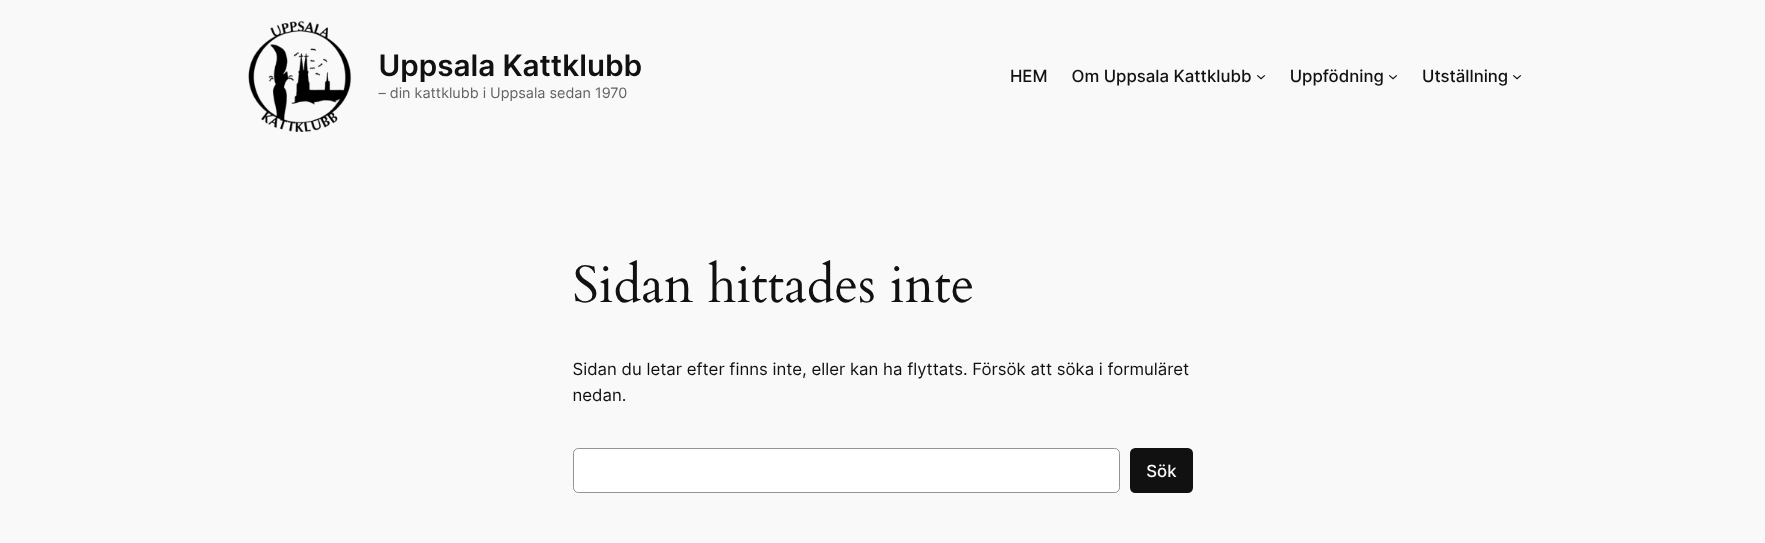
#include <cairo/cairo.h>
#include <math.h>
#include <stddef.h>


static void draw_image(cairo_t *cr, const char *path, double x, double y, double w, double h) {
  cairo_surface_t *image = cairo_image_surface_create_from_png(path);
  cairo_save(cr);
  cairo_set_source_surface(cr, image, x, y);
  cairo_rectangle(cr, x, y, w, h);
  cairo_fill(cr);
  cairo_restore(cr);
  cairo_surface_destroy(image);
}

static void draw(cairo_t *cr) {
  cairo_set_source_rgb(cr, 1, 1, 1);
  cairo_paint(cr);
  draw_image(cr, "images/1.png", 0, 0, 1765, 543);
}

int main(void) {
  cairo_surface_t *surface = cairo_image_surface_create(CAIRO_FORMAT_RGB24, 1765, 543);
  cairo_t *cr = cairo_create(surface);
  cairo_font_options_t *options = cairo_font_options_create();
  cairo_font_options_set_hint_metrics(options, CAIRO_HINT_METRICS_OFF);
  cairo_font_options_set_hint_style(options, CAIRO_HINT_STYLE_NONE);
  cairo_set_font_options(cr, options);
  cairo_set_miter_limit(cr, 4);
  draw(cr);
  cairo_surface_write_to_png(surface, "out.png");
  cairo_font_options_destroy(options);
  cairo_destroy(cr);
  cairo_surface_destroy(surface);
  return 0;
}
